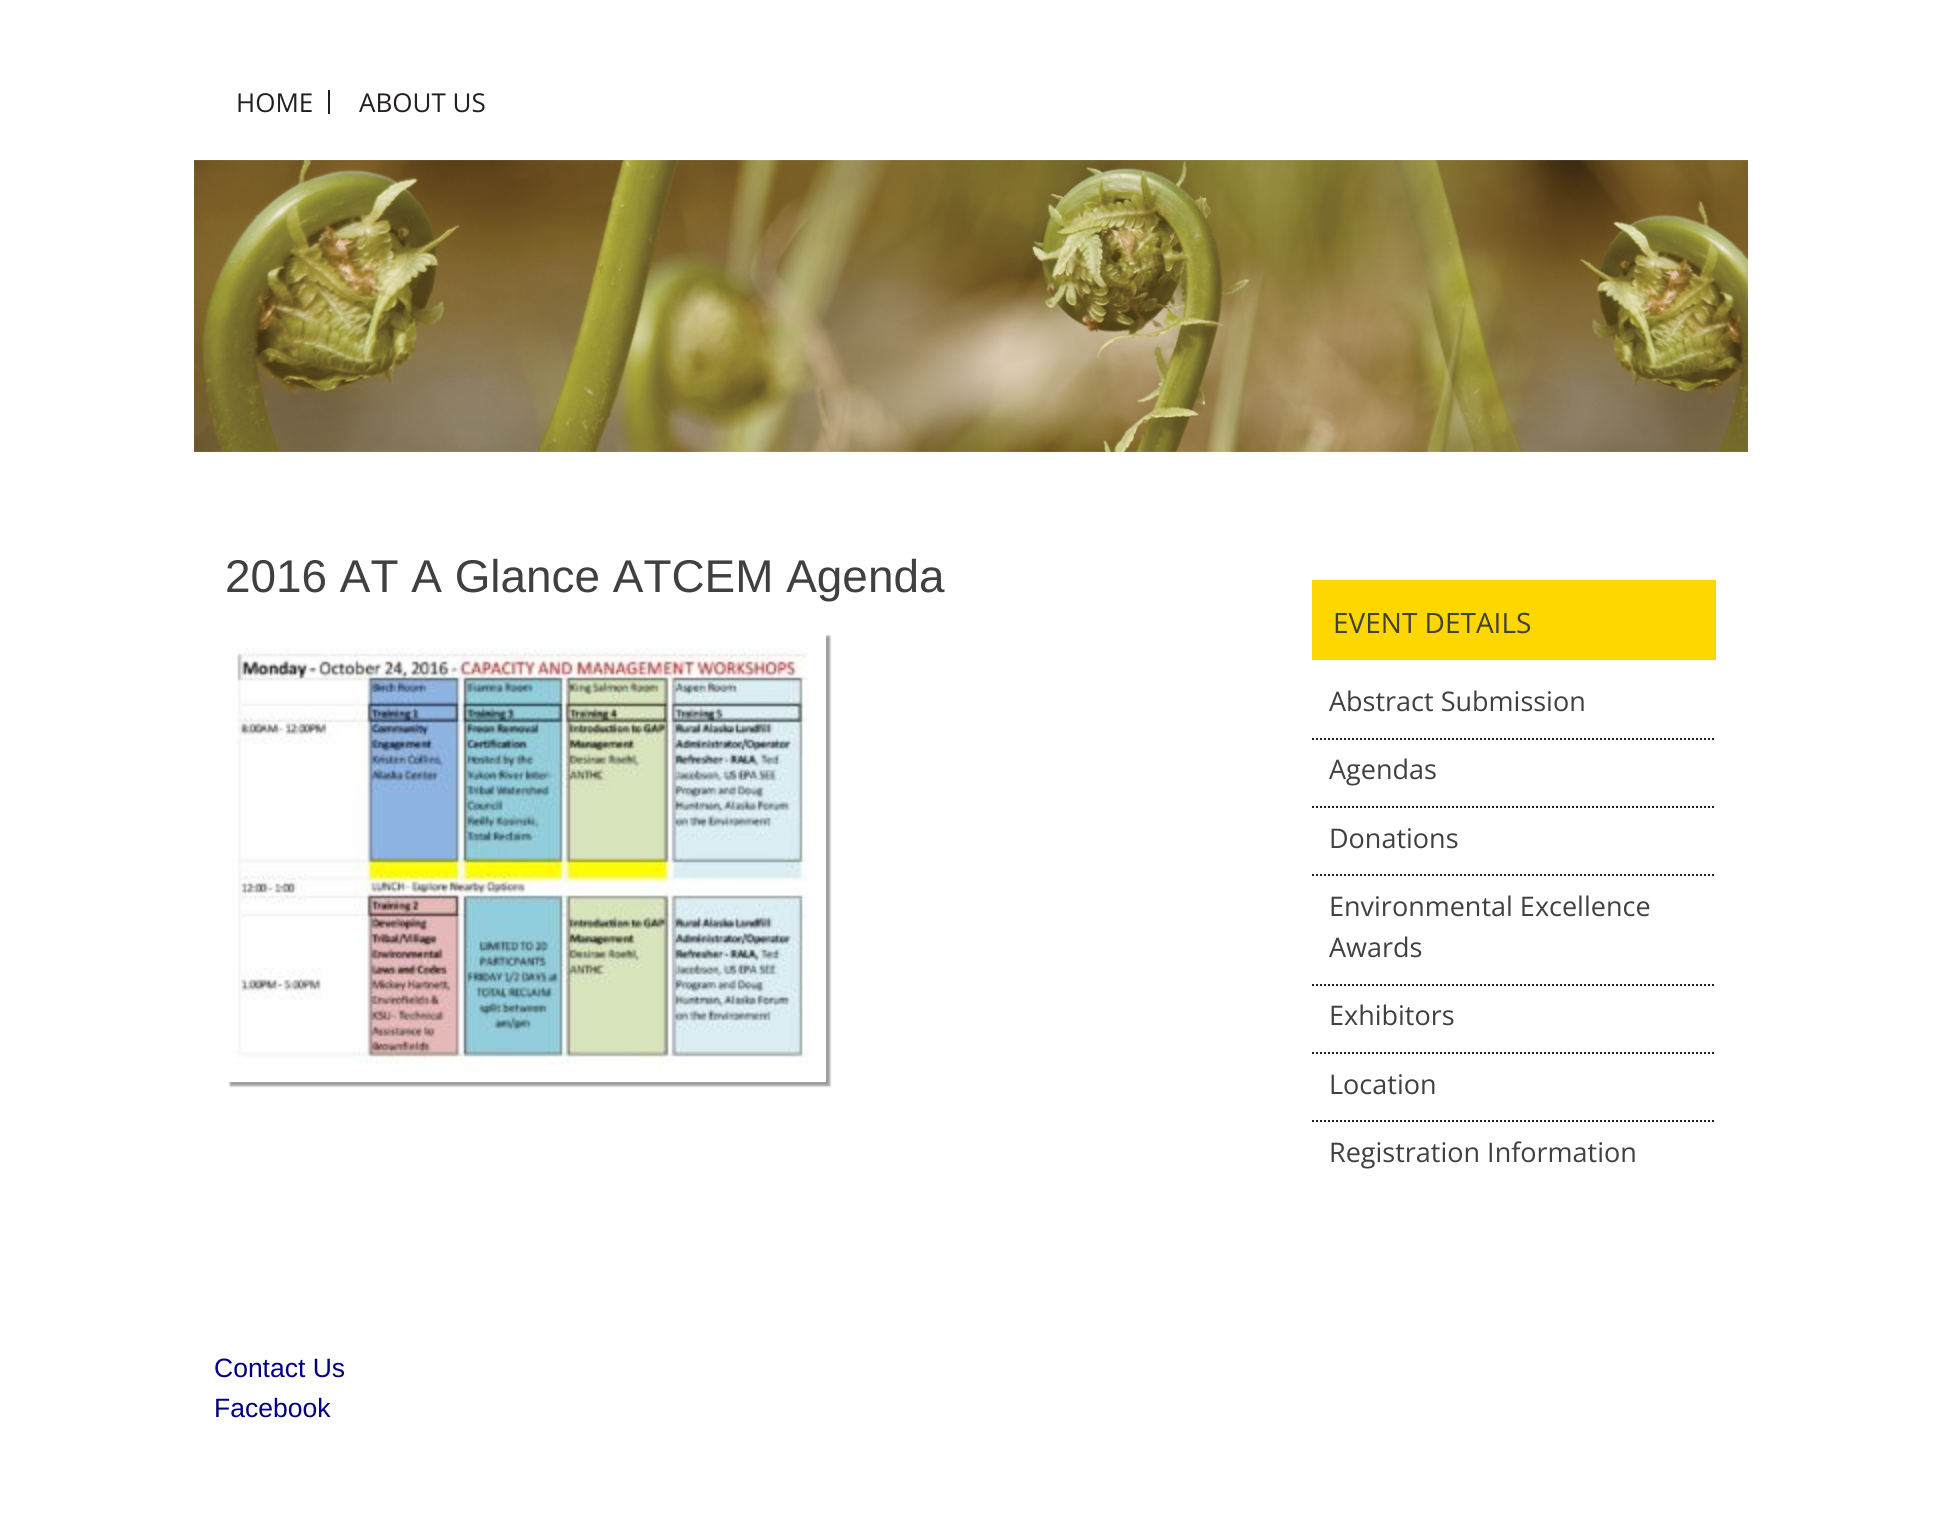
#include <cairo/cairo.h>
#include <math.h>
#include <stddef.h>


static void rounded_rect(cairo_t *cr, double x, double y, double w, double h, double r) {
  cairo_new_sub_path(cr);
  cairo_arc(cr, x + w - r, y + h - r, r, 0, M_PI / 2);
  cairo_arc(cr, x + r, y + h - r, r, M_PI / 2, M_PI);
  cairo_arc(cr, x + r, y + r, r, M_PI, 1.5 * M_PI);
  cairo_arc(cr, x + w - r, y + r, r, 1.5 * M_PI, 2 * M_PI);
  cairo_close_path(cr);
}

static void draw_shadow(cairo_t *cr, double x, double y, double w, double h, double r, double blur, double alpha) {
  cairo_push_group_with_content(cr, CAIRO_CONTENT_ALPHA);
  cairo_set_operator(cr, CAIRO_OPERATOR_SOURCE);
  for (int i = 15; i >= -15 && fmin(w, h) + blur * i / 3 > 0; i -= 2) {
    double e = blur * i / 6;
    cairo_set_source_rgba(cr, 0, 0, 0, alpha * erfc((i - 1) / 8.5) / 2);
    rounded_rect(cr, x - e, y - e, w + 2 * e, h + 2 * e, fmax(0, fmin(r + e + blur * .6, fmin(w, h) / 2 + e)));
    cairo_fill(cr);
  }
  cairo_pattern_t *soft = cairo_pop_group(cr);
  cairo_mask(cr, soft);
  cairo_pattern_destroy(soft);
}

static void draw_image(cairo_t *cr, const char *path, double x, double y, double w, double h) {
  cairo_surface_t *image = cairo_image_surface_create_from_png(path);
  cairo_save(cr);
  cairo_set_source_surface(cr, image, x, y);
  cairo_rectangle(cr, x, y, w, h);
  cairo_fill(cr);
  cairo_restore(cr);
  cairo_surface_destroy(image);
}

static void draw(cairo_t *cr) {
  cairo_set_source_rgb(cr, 1, 1, 1);
  cairo_paint(cr);
  cairo_set_source_rgb(cr, 35 / 255.0, 31 / 255.0, 32 / 255.0);
  cairo_rectangle(cr, 328, 90, 2, 24);
  cairo_fill(cr);
  draw_image(cr, "images/1.png", 194, 160, 1554, 292);
  cairo_save(cr);
  cairo_set_fill_rule(cr, CAIRO_FILL_RULE_EVEN_ODD);
  cairo_new_path(cr);
  cairo_move_to(cr, 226, 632);
  cairo_line_to(cr, 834, 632);
  cairo_line_to(cr, 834, 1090);
  cairo_line_to(cr, 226, 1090);
  cairo_close_path(cr);
  cairo_move_to(cr, 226, 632);
  cairo_line_to(cr, 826, 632);
  cairo_line_to(cr, 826, 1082);
  cairo_line_to(cr, 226, 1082);
  cairo_close_path(cr);
  cairo_clip(cr);
  cairo_set_source_rgb(cr, 158 / 255.0, 158 / 255.0, 158 / 255.0);
  draw_shadow(cr, 230, 636, 600, 450, 0, 1, 1);
  cairo_restore(cr);
  draw_image(cr, "images/2.png", 232, 647, 576, 426);
  cairo_set_source_rgb(cr, 1, 215 / 255.0, 0);
  cairo_rectangle(cr, 1312, 580, 404, 80);
  cairo_fill(cr);
  cairo_new_path(cr);
  cairo_move_to(cr, 1312, 739);
  cairo_line_to(cr, 1716, 739);
  cairo_set_source_rgb(cr, 35 / 255.0, 31 / 255.0, 32 / 255.0);
  cairo_set_dash(cr, (double[]){2, 2}, 2, 0);
  cairo_stroke(cr);
  cairo_new_path(cr);
  cairo_move_to(cr, 1312, 807);
  cairo_line_to(cr, 1716, 807);
  cairo_stroke(cr);
  cairo_new_path(cr);
  cairo_move_to(cr, 1312, 875);
  cairo_line_to(cr, 1716, 875);
  cairo_stroke(cr);
  cairo_new_path(cr);
  cairo_move_to(cr, 1312, 985);
  cairo_line_to(cr, 1716, 985);
  cairo_stroke(cr);
  cairo_new_path(cr);
  cairo_move_to(cr, 1312, 1053);
  cairo_line_to(cr, 1716, 1053);
  cairo_stroke(cr);
  cairo_new_path(cr);
  cairo_move_to(cr, 1312, 1121);
  cairo_line_to(cr, 1716, 1121);
  cairo_stroke(cr);
  cairo_select_font_face(cr, "Open Sans", CAIRO_FONT_SLANT_NORMAL, CAIRO_FONT_WEIGHT_NORMAL);
  cairo_set_font_size(cr, 26);
  cairo_move_to(cr, 236, 112);
  cairo_show_text(cr, "HOME");
  cairo_move_to(cr, 359, 112);
  cairo_show_text(cr, "ABOUT US");
  cairo_select_font_face(cr, "Liberation Sans", CAIRO_FONT_SLANT_NORMAL, CAIRO_FONT_WEIGHT_NORMAL);
  cairo_set_font_size(cr, 45.9);
  cairo_set_source_rgb(cr, 64 / 255.0, 64 / 255.0, 64 / 255.0);
  cairo_move_to(cr, 225, 592);
  cairo_show_text(cr, "2016 AT A Glance ATCEM Agenda");
  cairo_select_font_face(cr, "Open Sans", CAIRO_FONT_SLANT_NORMAL, CAIRO_FONT_WEIGHT_NORMAL);
  cairo_set_font_size(cr, 28);
  cairo_move_to(cr, 1333, 633);
  cairo_show_text(cr, "EVENT DETAILS");
  cairo_set_font_size(cr, 27);
  cairo_move_to(cr, 1329, 711);
  cairo_show_text(cr, "Abstract Submission");
  cairo_move_to(cr, 1329, 779);
  cairo_show_text(cr, "Agendas");
  cairo_move_to(cr, 1329, 848);
  cairo_show_text(cr, "Donations");
  cairo_move_to(cr, 1329, 916);
  cairo_show_text(cr, "Environmental Excellence");
  cairo_move_to(cr, 1329, 957);
  cairo_show_text(cr, "Awards");
  cairo_move_to(cr, 1329, 1025);
  cairo_show_text(cr, "Exhibitors");
  cairo_move_to(cr, 1329, 1094);
  cairo_show_text(cr, "Location");
  cairo_move_to(cr, 1329, 1162);
  cairo_show_text(cr, "Registration Information");
  cairo_select_font_face(cr, "Liberation Sans", CAIRO_FONT_SLANT_NORMAL, CAIRO_FONT_WEIGHT_NORMAL);
  cairo_set_font_size(cr, 26.5);
  cairo_set_source_rgb(cr, 0, 0, 128 / 255.0);
  cairo_move_to(cr, 214, 1377);
  cairo_show_text(cr, "Contact Us");
  cairo_move_to(cr, 214, 1417);
  cairo_show_text(cr, "Facebook");
}

int main(void) {
  cairo_surface_t *surface = cairo_image_surface_create(CAIRO_FORMAT_RGB24, 1942, 1524);
  cairo_t *cr = cairo_create(surface);
  cairo_font_options_t *options = cairo_font_options_create();
  cairo_font_options_set_hint_metrics(options, CAIRO_HINT_METRICS_OFF);
  cairo_font_options_set_hint_style(options, CAIRO_HINT_STYLE_NONE);
  cairo_set_font_options(cr, options);
  cairo_set_miter_limit(cr, 4);
  draw(cr);
  cairo_surface_write_to_png(surface, "out.png");
  cairo_font_options_destroy(options);
  cairo_destroy(cr);
  cairo_surface_destroy(surface);
  return 0;
}
